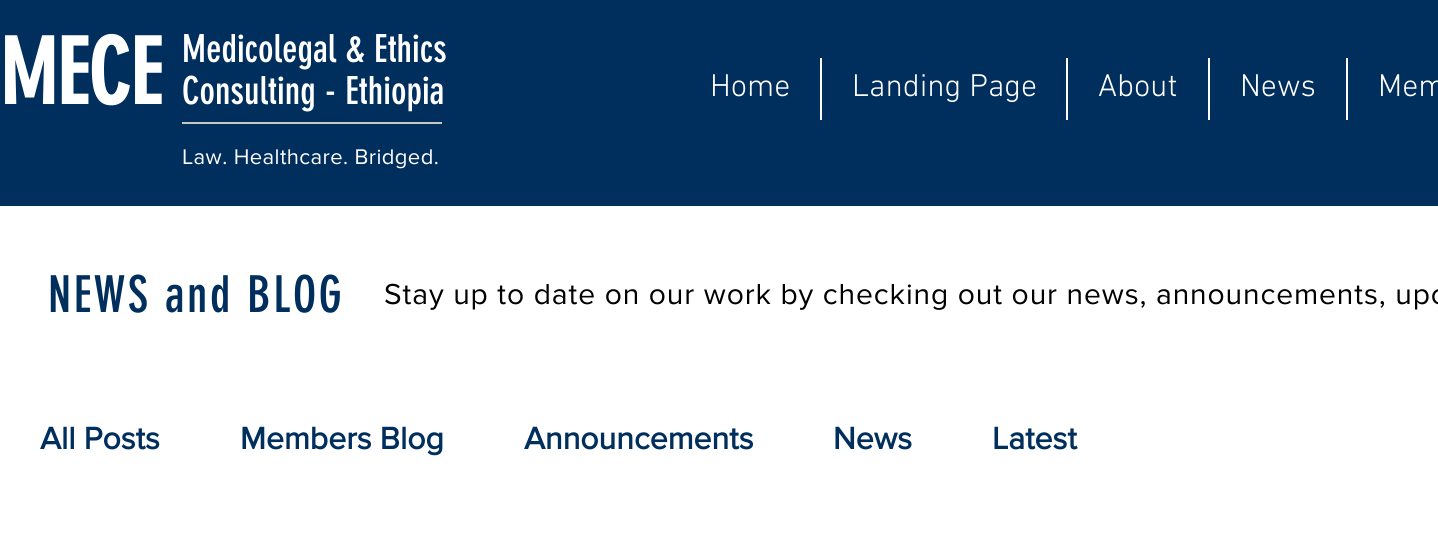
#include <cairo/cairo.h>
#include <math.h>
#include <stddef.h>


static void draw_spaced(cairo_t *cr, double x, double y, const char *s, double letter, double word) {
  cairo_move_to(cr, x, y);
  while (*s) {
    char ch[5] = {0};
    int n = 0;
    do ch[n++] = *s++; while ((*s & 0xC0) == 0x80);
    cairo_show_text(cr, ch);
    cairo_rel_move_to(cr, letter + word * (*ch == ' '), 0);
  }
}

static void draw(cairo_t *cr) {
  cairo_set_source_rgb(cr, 1, 1, 1);
  cairo_paint(cr);
  cairo_set_source_rgb(cr, 0, 46 / 255.0, 93 / 255.0);
  cairo_rectangle(cr, 0, 0, 1438, 206);
  cairo_fill(cr);
  cairo_set_source_rgb(cr, 1, 1, 1);
  cairo_rectangle(cr, 820, 58, 2, 62);
  cairo_fill(cr);
  cairo_rectangle(cr, 1066, 58, 2, 62);
  cairo_fill(cr);
  cairo_rectangle(cr, 1208, 58, 2, 62);
  cairo_fill(cr);
  cairo_rectangle(cr, 1346, 58, 2, 62);
  cairo_fill(cr);
  cairo_set_source_rgb(cr, 199 / 255.0, 199 / 255.0, 199 / 255.0);
  cairo_rectangle(cr, 182, 122, 260, 2);
  cairo_fill(cr);
  cairo_select_font_face(cr, "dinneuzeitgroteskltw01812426", CAIRO_FONT_SLANT_NORMAL, CAIRO_FONT_WEIGHT_BOLD);
  cairo_set_font_size(cr, 90);
  cairo_set_source_rgb(cr, 1, 1, 1);
  cairo_move_to(cr, 0, 104);
  cairo_show_text(cr, "MECE");
  cairo_select_font_face(cr, "dinneuzeitgroteskltw01812426", CAIRO_FONT_SLANT_NORMAL, CAIRO_FONT_WEIGHT_NORMAL);
  cairo_set_font_size(cr, 38);
  cairo_move_to(cr, 182, 62);
  cairo_show_text(cr, "Medicolegal & Ethics");
  cairo_move_to(cr, 182, 104);
  cairo_show_text(cr, "Consulting - Ethiopia");
  cairo_select_font_face(cr, "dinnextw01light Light", CAIRO_FONT_SLANT_NORMAL, CAIRO_FONT_WEIGHT_NORMAL);
  cairo_set_font_size(cr, 32);
  cairo_move_to(cr, 710, 96);
  cairo_show_text(cr, "Home");
  cairo_move_to(cr, 852, 96);
  cairo_show_text(cr, "Landing Page");
  cairo_move_to(cr, 1098, 96);
  cairo_show_text(cr, "About");
  cairo_move_to(cr, 1240, 96);
  cairo_show_text(cr, "News");
  cairo_move_to(cr, 1378, 96);
  cairo_show_text(cr, "Mem");
  cairo_select_font_face(cr, "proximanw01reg", CAIRO_FONT_SLANT_NORMAL, CAIRO_FONT_WEIGHT_NORMAL);
  cairo_set_font_size(cr, 22);
  draw_spaced(cr, 182, 164, "Law. Healthcare. Bridged.", 0.4, 0);
  cairo_select_font_face(cr, "dinneuzeitgroteskltw01812426", CAIRO_FONT_SLANT_NORMAL, CAIRO_FONT_WEIGHT_NORMAL);
  cairo_set_font_size(cr, 50);
  cairo_set_source_rgb(cr, 0, 46 / 255.0, 93 / 255.0);
  draw_spaced(cr, 48, 312, "NEWS and BLOG", 2.5, 0);
  cairo_select_font_face(cr, "proximanw01reg", CAIRO_FONT_SLANT_NORMAL, CAIRO_FONT_WEIGHT_NORMAL);
  cairo_set_font_size(cr, 30);
  cairo_set_source_rgb(cr, 0, 0, 0);
  draw_spaced(cr, 384, 304, "Stay up to date on our work by checking out our news, announcements, upc", 0.9, 0);
  cairo_select_font_face(cr, "proximanw01reg", CAIRO_FONT_SLANT_NORMAL, CAIRO_FONT_WEIGHT_BOLD);
  cairo_set_font_size(cr, 32);
  cairo_set_source_rgb(cr, 0, 46 / 255.0, 93 / 255.0);
  cairo_move_to(cr, 40, 449);
  cairo_show_text(cr, "All Posts");
  cairo_move_to(cr, 240, 449);
  cairo_show_text(cr, "Members Blog");
  cairo_move_to(cr, 524, 449);
  cairo_show_text(cr, "Announcements");
  cairo_move_to(cr, 833, 449);
  cairo_show_text(cr, "News");
  cairo_move_to(cr, 992, 449);
  cairo_show_text(cr, "Latest");
}

int main(void) {
  cairo_surface_t *surface = cairo_image_surface_create(CAIRO_FORMAT_RGB24, 1438, 547);
  cairo_t *cr = cairo_create(surface);
  cairo_font_options_t *options = cairo_font_options_create();
  cairo_font_options_set_hint_metrics(options, CAIRO_HINT_METRICS_OFF);
  cairo_font_options_set_hint_style(options, CAIRO_HINT_STYLE_NONE);
  cairo_set_font_options(cr, options);
  cairo_set_miter_limit(cr, 4);
  draw(cr);
  cairo_surface_write_to_png(surface, "out.png");
  cairo_font_options_destroy(options);
  cairo_destroy(cr);
  cairo_surface_destroy(surface);
  return 0;
}
